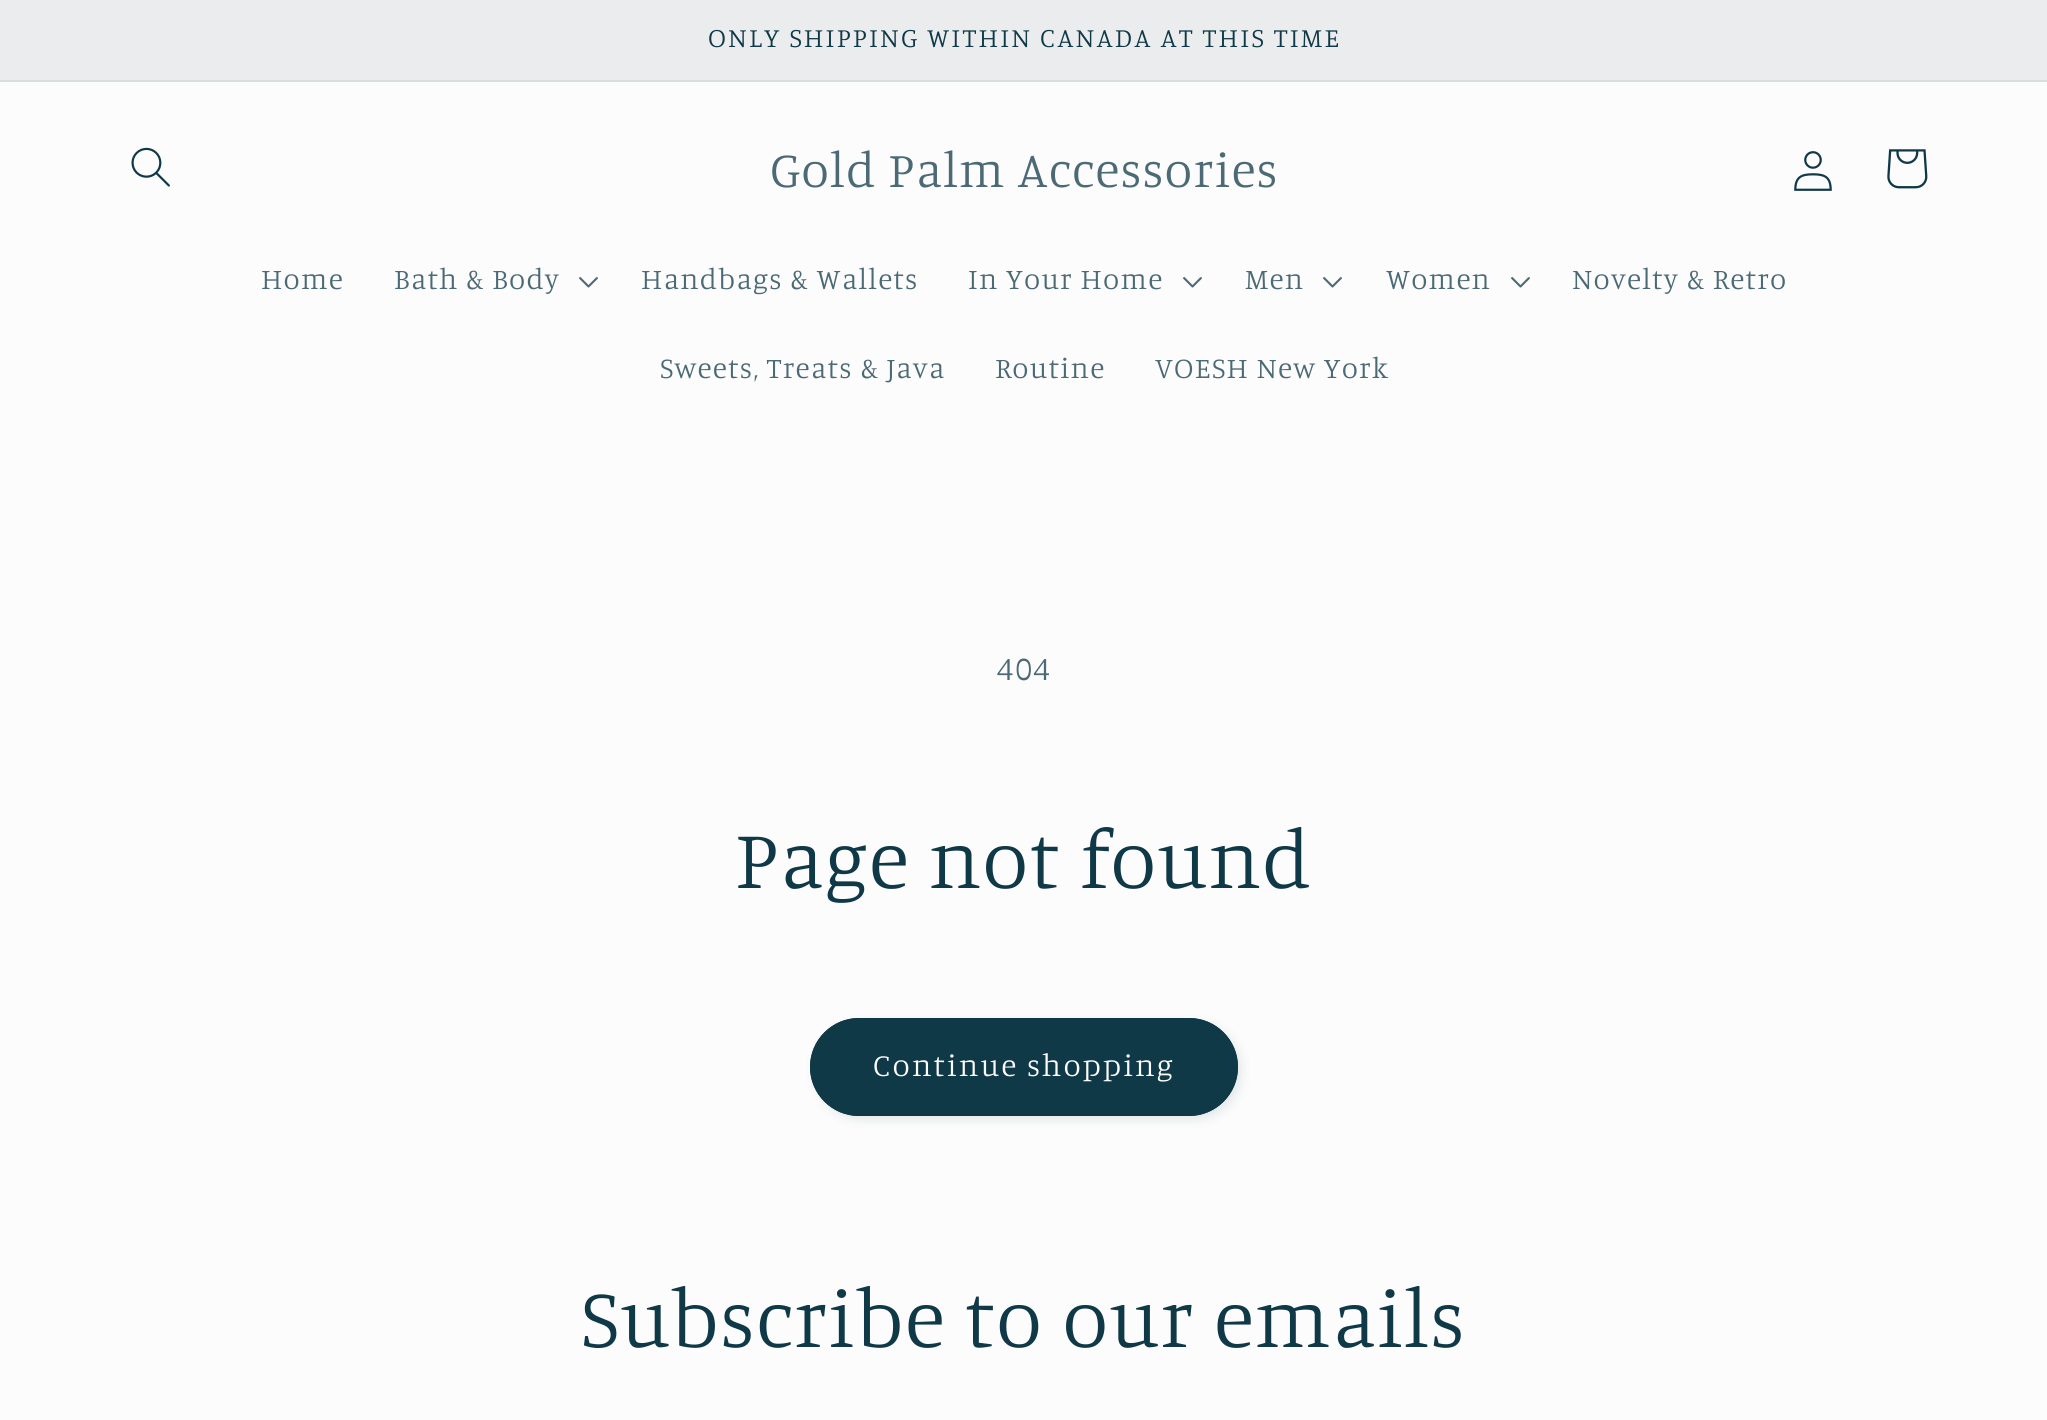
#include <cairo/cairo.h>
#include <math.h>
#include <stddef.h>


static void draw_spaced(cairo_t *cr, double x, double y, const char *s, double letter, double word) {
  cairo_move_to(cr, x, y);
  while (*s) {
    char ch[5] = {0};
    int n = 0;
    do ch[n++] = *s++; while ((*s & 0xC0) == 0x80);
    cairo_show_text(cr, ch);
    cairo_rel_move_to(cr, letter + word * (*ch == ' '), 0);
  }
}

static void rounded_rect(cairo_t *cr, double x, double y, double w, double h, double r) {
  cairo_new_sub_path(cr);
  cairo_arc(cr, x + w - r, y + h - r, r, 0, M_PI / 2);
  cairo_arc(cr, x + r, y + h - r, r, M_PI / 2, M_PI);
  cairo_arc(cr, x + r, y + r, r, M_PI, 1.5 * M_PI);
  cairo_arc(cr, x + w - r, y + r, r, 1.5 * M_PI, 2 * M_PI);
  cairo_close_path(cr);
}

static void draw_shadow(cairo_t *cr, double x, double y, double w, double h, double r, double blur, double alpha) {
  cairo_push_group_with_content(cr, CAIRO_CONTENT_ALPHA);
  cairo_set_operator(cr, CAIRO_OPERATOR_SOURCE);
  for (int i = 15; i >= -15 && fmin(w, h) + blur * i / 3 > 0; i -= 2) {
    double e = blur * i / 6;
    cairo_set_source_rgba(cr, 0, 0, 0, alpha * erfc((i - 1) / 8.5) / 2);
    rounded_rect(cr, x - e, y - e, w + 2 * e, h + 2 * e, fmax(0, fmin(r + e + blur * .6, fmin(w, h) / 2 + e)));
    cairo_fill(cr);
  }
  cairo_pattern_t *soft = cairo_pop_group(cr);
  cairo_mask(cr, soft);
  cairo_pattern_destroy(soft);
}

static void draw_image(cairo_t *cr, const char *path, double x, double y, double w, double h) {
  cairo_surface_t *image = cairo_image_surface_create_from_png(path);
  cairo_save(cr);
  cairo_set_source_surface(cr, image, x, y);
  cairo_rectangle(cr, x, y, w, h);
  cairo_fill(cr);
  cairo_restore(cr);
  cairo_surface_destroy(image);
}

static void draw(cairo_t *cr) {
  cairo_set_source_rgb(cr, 252 / 255.0, 252 / 255.0, 252 / 255.0);
  cairo_paint(cr);
  cairo_set_source_rgb(cr, 235 / 255.0, 236 / 255.0, 237 / 255.0);
  cairo_rectangle(cr, 0, 0, 2047, 80);
  cairo_fill(cr);
  cairo_set_source_rgb(cr, 217 / 255.0, 222 / 255.0, 224 / 255.0);
  cairo_rectangle(cr, 0, 80, 2047, 2);
  cairo_fill(cr);
  draw_image(cr, "images/1.png", 131, 147, 39, 40);
  draw_image(cr, "images/2.png", 1794, 151, 38, 40);
  draw_image(cr, "images/3.png", 1887, 149, 41, 40);
  draw_image(cr, "images/4.png", 579, 277, 19, 11);
  draw_image(cr, "images/4.png", 1183, 277, 19, 11);
  draw_image(cr, "images/4.png", 1323, 277, 19, 11);
  draw_image(cr, "images/4.png", 1511, 277, 19, 11);
  cairo_set_source_rgb(cr, 16 / 255.0, 57 / 255.0, 72 / 255.0);
  draw_shadow(cr, 814, 1022, 428, 98, 49, 5, 0.1);
  cairo_set_source_rgb(cr, 16 / 255.0, 57 / 255.0, 72 / 255.0);
  rounded_rect(cr, 810, 1018, 428, 98, 49);
  cairo_fill(cr);
  rounded_rect(cr, 811, 1019, 426, 96, 48);
  cairo_stroke(cr);
  cairo_select_font_face(cr, "Manuale Light", CAIRO_FONT_SLANT_NORMAL, CAIRO_FONT_WEIGHT_NORMAL);
  cairo_set_font_size(cr, 27.3);
  draw_spaced(cr, 708, 47, "ONLY SHIPPING WITHIN CANADA AT THIS TIME", 2.1, 0);
  cairo_set_font_size(cr, 50.4);
  cairo_set_source_rgb(cr, 75 / 255.0, 106 / 255.0, 117 / 255.0);
  draw_spaced(cr, 770, 187, "Gold Palm Accessories", 1.25, 0);
  cairo_set_font_size(cr, 29.5);
  draw_spaced(cr, 261, 289, "Home", 1.25, 0);
  draw_spaced(cr, 394, 289, "Bath & Body", 1.25, 0);
  draw_spaced(cr, 641, 289, "Handbags & Wallets", 1.25, 0);
  draw_spaced(cr, 968, 289, "In Your Home", 1.25, 0);
  draw_spaced(cr, 1245, 289, "Men", 1.25, 0);
  draw_spaced(cr, 1386, 289, "Women", 1.25, 0);
  draw_spaced(cr, 1572, 289, "Novelty & Retro", 1.25, 0);
  draw_spaced(cr, 660, 378, "Sweets, Treats & Java", 1.25, 0);
  draw_spaced(cr, 995, 378, "Routine", 1.25, 0);
  draw_spaced(cr, 1155, 378, "VOESH New York", 1.25, 0);
  cairo_set_font_size(cr, 34);
  draw_spaced(cr, 997, 680, "404", 1.25, 0);
  cairo_set_font_size(cr, 84);
  cairo_set_source_rgb(cr, 16 / 255.0, 57 / 255.0, 72 / 255.0);
  draw_spaced(cr, 735, 888, "Page not found", 1.25, 0);
  cairo_set_font_size(cr, 31.5);
  cairo_set_source_rgb(cr, 252 / 255.0, 252 / 255.0, 252 / 255.0);
  draw_spaced(cr, 873, 1076, "Continue shopping", 2.1, 0);
  cairo_set_font_size(cr, 84);
  cairo_set_source_rgb(cr, 16 / 255.0, 57 / 255.0, 72 / 255.0);
  draw_spaced(cr, 581, 1347, "Subscribe to our emails", 1.25, 0);
}

int main(void) {
  cairo_surface_t *surface = cairo_image_surface_create(CAIRO_FORMAT_RGB24, 2047, 1420);
  cairo_t *cr = cairo_create(surface);
  cairo_font_options_t *options = cairo_font_options_create();
  cairo_font_options_set_hint_metrics(options, CAIRO_HINT_METRICS_OFF);
  cairo_font_options_set_hint_style(options, CAIRO_HINT_STYLE_NONE);
  cairo_set_font_options(cr, options);
  cairo_set_miter_limit(cr, 4);
  draw(cr);
  cairo_surface_write_to_png(surface, "out.png");
  cairo_font_options_destroy(options);
  cairo_destroy(cr);
  cairo_surface_destroy(surface);
  return 0;
}
